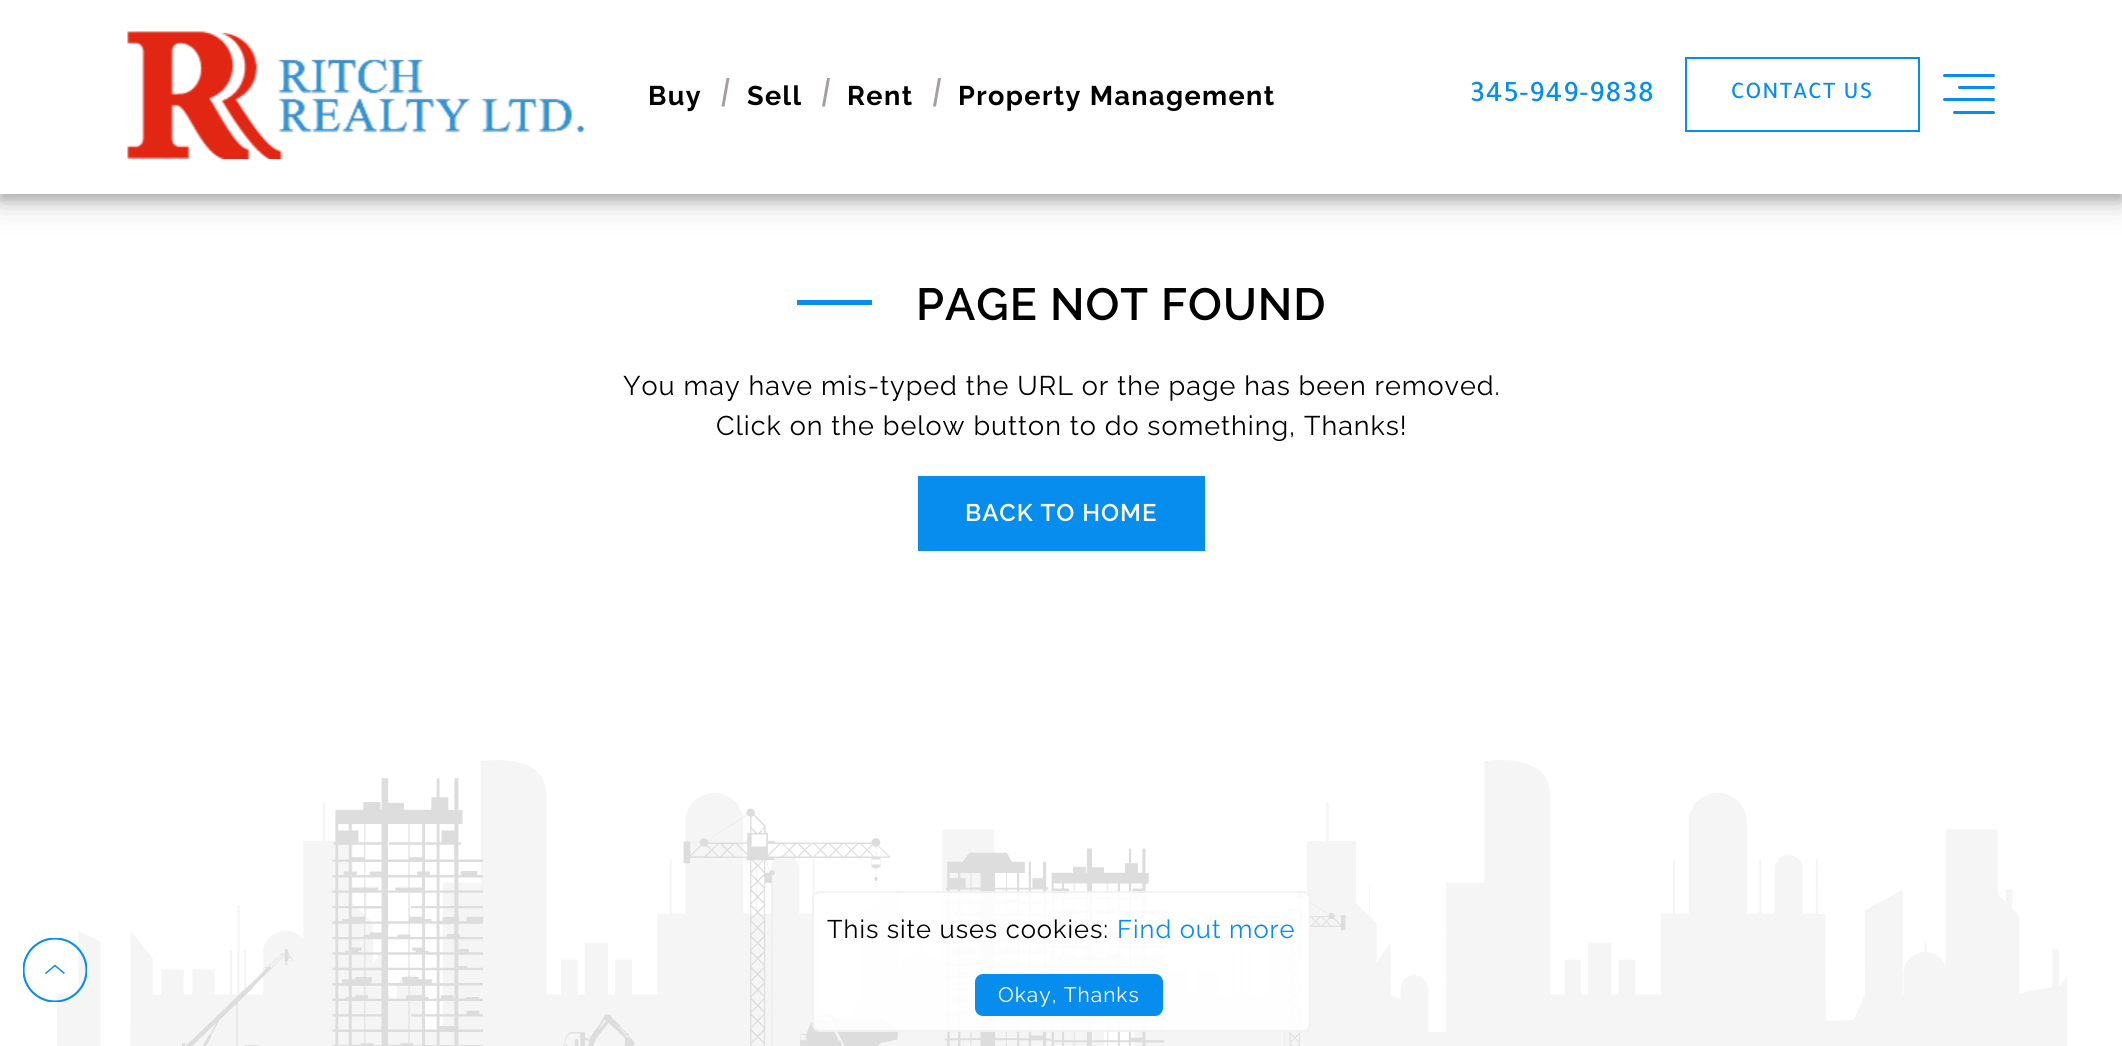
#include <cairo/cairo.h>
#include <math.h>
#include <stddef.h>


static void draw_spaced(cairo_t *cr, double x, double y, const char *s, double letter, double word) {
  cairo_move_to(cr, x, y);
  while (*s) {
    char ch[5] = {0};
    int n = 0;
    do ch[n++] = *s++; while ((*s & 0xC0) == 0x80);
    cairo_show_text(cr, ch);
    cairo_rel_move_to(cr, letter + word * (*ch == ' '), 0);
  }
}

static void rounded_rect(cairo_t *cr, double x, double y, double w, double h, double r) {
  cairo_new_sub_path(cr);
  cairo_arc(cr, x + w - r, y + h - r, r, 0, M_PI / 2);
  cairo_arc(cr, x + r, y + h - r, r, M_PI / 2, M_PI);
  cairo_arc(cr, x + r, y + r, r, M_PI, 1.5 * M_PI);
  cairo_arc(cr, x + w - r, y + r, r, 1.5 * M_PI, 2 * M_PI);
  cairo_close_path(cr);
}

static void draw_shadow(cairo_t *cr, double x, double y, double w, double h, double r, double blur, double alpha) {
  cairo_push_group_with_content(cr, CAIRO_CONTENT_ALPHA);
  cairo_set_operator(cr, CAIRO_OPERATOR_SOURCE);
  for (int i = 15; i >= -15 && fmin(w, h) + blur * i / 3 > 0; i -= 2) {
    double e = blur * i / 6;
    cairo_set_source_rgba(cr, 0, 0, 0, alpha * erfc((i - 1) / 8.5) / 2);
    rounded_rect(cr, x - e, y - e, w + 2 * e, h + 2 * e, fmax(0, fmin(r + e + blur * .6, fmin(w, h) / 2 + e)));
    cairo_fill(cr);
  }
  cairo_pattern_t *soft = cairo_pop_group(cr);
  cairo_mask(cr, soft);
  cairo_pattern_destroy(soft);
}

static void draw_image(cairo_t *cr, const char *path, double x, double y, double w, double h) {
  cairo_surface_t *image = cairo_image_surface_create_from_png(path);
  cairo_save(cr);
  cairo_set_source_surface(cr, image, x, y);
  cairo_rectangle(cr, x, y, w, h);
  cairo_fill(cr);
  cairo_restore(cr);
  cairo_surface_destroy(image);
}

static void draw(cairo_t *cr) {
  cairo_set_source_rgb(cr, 1, 1, 1);
  cairo_paint(cr);
  draw_image(cr, "images/2.png", 57, 760, 2010, 286);
  cairo_save(cr);
  cairo_rectangle(cr, 23, 938, 64, 64);
  cairo_clip(cr);
  cairo_arc(cr, 55, 970, 31.5, 0, 2 * M_PI);
  cairo_set_source_rgb(cr, 7 / 255.0, 141 / 255.0, 238 / 255.0);
  cairo_set_line_width(cr, 2.1);
  cairo_stroke(cr);
  cairo_restore(cr);
  cairo_new_path(cr);
  cairo_move_to(cr, 45.5, 973.5);
  cairo_line_to(cr, 55, 965.5);
  cairo_line_to(cr, 64.5, 973.5);
  cairo_set_source_rgb(cr, 7 / 255.0, 141 / 255.0, 238 / 255.0);
  cairo_set_line_width(cr, 1.5);
  cairo_stroke(cr);
  cairo_set_source_rgb(cr, 0, 0, 0);
  draw_shadow(cr, 0, 9, 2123, 194, 0, 15, 0.19);
  draw_shadow(cr, 0, 6, 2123, 194, 0, 6, 0.2);
  cairo_set_source_rgb(cr, 1, 1, 1);
  cairo_rectangle(cr, 0, 0, 2122, 194);
  cairo_fill(cr);
  draw_image(cr, "images/1.png", 127, 31, 458, 128);
  cairo_set_source_rgb(cr, 165 / 255.0, 159 / 255.0, 159 / 255.0);
  cairo_new_path(cr);
  cairo_move_to(cr, 726.5, 78);
  cairo_line_to(cr, 729.5, 78);
  cairo_line_to(cr, 724.5, 106.5);
  cairo_line_to(cr, 721.5, 106.5);
  cairo_close_path(cr);
  cairo_fill(cr);
  cairo_new_path(cr);
  cairo_move_to(cr, 827, 78);
  cairo_line_to(cr, 830, 78);
  cairo_line_to(cr, 825, 106.5);
  cairo_line_to(cr, 822, 106.5);
  cairo_close_path(cr);
  cairo_fill(cr);
  cairo_new_path(cr);
  cairo_move_to(cr, 938, 78);
  cairo_line_to(cr, 941, 78);
  cairo_line_to(cr, 936, 106.5);
  cairo_line_to(cr, 933, 106.5);
  cairo_close_path(cr);
  cairo_fill(cr);
  cairo_rectangle(cr, 1686, 58, 233, 73);
  cairo_set_source_rgb(cr, 7 / 255.0, 141 / 255.0, 238 / 255.0);
  cairo_set_line_width(cr, 2);
  cairo_stroke(cr);
  rounded_rect(cr, 1943, 74, 52, 3, 1.5);
  cairo_fill(cr);
  rounded_rect(cr, 1958, 86, 37, 3, 1.5);
  cairo_fill(cr);
  rounded_rect(cr, 1943, 98, 52, 3, 1.5);
  cairo_fill(cr);
  rounded_rect(cr, 1953, 111, 42, 3, 1.5);
  cairo_fill(cr);
  cairo_rectangle(cr, 797, 300, 75, 5);
  cairo_fill(cr);
  cairo_rectangle(cr, 918, 476, 287, 75);
  cairo_fill(cr);
  cairo_set_source_rgba(cr, 1, 1, 1, 0.9);
  rounded_rect(cr, 812, 891, 499, 141, 8);
  cairo_fill(cr);
  rounded_rect(cr, 813, 892, 497, 139, 7);
  cairo_set_source_rgba(cr, 132 / 255.0, 132 / 255.0, 132 / 255.0, 0.1);
  cairo_stroke(cr);
  cairo_set_source_rgb(cr, 7 / 255.0, 141 / 255.0, 238 / 255.0);
  rounded_rect(cr, 975, 974, 188, 42, 8);
  cairo_fill(cr);
  cairo_select_font_face(cr, "Raleway", CAIRO_FONT_SLANT_NORMAL, CAIRO_FONT_WEIGHT_BOLD);
  cairo_set_font_size(cr, 27);
  cairo_set_source_rgb(cr, 0, 0, 0);
  draw_spaced(cr, 648, 105, "Buy", 1.4, 0);
  draw_spaced(cr, 747, 105, "Sell", 1.4, 0);
  draw_spaced(cr, 847, 105, "Rent", 1.4, 0);
  draw_spaced(cr, 958, 105, "Property Management", 1.4, 0);
  cairo_select_font_face(cr, "Tajawal Medium", CAIRO_FONT_SLANT_NORMAL, CAIRO_FONT_WEIGHT_NORMAL);
  cairo_set_font_size(cr, 30);
  cairo_set_source_rgb(cr, 7 / 255.0, 141 / 255.0, 238 / 255.0);
  draw_spaced(cr, 1470, 101, "345-949-9838", 0.98, 0);
  cairo_set_font_size(cr, 24);
  draw_spaced(cr, 1731, 98, "CONTACT US", 0.98, 0);
  cairo_select_font_face(cr, "Raleway SemiBold", CAIRO_FONT_SLANT_NORMAL, CAIRO_FONT_WEIGHT_NORMAL);
  cairo_set_font_size(cr, 45);
  cairo_set_source_rgb(cr, 0, 0, 0);
  draw_spaced(cr, 916, 320, "PAGE NOT FOUND", 0.98, 0);
  cairo_select_font_face(cr, "Raleway", CAIRO_FONT_SLANT_NORMAL, CAIRO_FONT_WEIGHT_NORMAL);
  cairo_set_font_size(cr, 27);
  draw_spaced(cr, 623, 395, "You may have mis-typed the URL or the page has been removed.", 0.98, 0);
  draw_spaced(cr, 716, 435, "Click on the below button to do something, Thanks!", 0.98, 0);
  cairo_select_font_face(cr, "Raleway SemiBold", CAIRO_FONT_SLANT_NORMAL, CAIRO_FONT_WEIGHT_NORMAL);
  cairo_set_font_size(cr, 24);
  cairo_set_source_rgb(cr, 1, 1, 1);
  draw_spaced(cr, 965, 521, "BACK TO HOME", 0.98, 0);
  cairo_select_font_face(cr, "Raleway", CAIRO_FONT_SLANT_NORMAL, CAIRO_FONT_WEIGHT_NORMAL);
  cairo_set_font_size(cr, 25.5);
  cairo_set_source_rgb(cr, 0, 0, 0);
  draw_spaced(cr, 827, 938, "This site uses cookies:", 0.98, 0);
  cairo_set_source_rgb(cr, 7 / 255.0, 141 / 255.0, 238 / 255.0);
  draw_spaced(cr, 1117, 938, "Find out more", 0.98, 0);
  cairo_set_font_size(cr, 21);
  cairo_set_source_rgb(cr, 1, 1, 1);
  draw_spaced(cr, 998, 1002, "Okay, Thanks", 0.98, 0);
}

int main(void) {
  cairo_surface_t *surface = cairo_image_surface_create(CAIRO_FORMAT_RGB24, 2122, 1046);
  cairo_t *cr = cairo_create(surface);
  cairo_font_options_t *options = cairo_font_options_create();
  cairo_font_options_set_hint_metrics(options, CAIRO_HINT_METRICS_OFF);
  cairo_font_options_set_hint_style(options, CAIRO_HINT_STYLE_NONE);
  cairo_set_font_options(cr, options);
  cairo_set_miter_limit(cr, 4);
  draw(cr);
  cairo_surface_write_to_png(surface, "out.png");
  cairo_font_options_destroy(options);
  cairo_destroy(cr);
  cairo_surface_destroy(surface);
  return 0;
}
